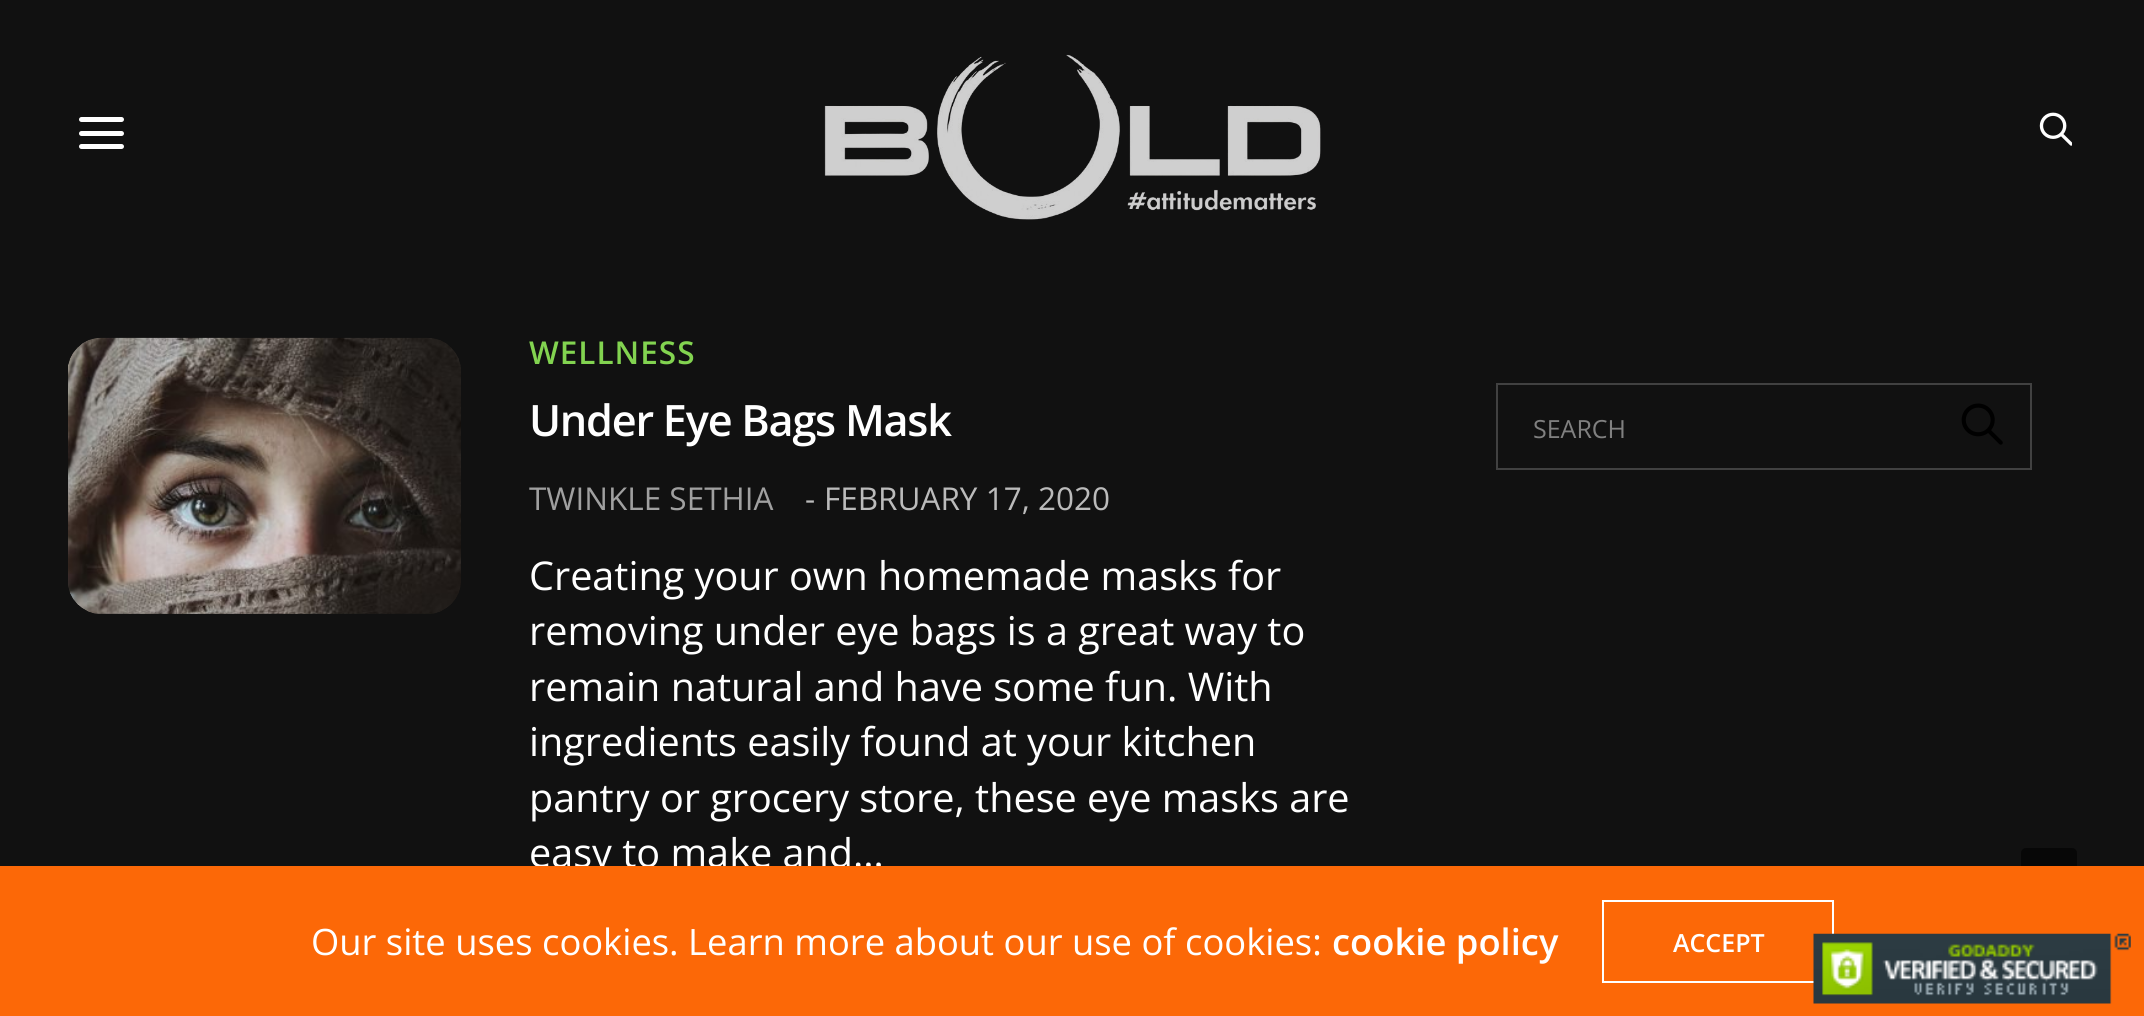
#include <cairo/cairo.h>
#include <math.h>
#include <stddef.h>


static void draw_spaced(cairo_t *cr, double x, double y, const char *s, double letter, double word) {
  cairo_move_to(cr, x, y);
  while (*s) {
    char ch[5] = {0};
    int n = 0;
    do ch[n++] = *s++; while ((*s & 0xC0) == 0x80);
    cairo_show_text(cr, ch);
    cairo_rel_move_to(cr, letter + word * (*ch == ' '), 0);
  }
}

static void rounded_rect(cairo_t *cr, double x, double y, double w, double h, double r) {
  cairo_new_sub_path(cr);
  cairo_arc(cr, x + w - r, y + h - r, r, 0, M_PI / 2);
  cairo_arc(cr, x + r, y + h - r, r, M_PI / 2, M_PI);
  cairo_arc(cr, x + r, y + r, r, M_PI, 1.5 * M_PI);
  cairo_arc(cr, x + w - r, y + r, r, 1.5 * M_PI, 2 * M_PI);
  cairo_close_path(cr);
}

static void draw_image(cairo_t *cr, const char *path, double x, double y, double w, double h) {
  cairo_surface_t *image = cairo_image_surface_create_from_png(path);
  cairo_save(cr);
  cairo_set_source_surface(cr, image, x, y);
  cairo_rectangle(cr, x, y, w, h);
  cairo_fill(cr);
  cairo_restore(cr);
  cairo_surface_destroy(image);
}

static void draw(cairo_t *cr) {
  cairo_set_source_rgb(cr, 17 / 255.0, 17 / 255.0, 17 / 255.0);
  cairo_paint(cr);
  cairo_set_source_rgb(cr, 1, 1, 1);
  rounded_rect(cr, 79, 117, 45, 5, 2.5);
  cairo_fill(cr);
  rounded_rect(cr, 79, 131, 45, 5, 2.5);
  cairo_fill(cr);
  rounded_rect(cr, 79, 144, 45, 5, 2.5);
  cairo_fill(cr);
  draw_image(cr, "images/1.png", 824, 54, 497, 166);
  draw_image(cr, "images/2.png", 2039, 112, 33, 34);
  draw_image(cr, "images/3.png", 68, 337, 393, 277);
  cairo_rectangle(cr, 1497, 384, 534, 85);
  cairo_set_source_rgb(cr, 65 / 255.0, 65 / 255.0, 65 / 255.0);
  cairo_stroke(cr);
  draw_image(cr, "images/4.png", 1961, 403, 42, 42);
  cairo_set_source_rgb(cr, 7 / 255.0, 7 / 255.0, 7 / 255.0);
  rounded_rect(cr, 2021, 848, 56, 57, 5);
  cairo_fill(cr);
  cairo_select_font_face(cr, "Open Sans SemiBold", CAIRO_FONT_SLANT_NORMAL, CAIRO_FONT_WEIGHT_NORMAL);
  cairo_set_font_size(cr, 31.5);
  cairo_set_source_rgb(cr, 130 / 255.0, 211 / 255.0, 80 / 255.0);
  draw_spaced(cr, 529, 364, "WELLNESS", 1, 0);
  cairo_set_font_size(cr, 43.25);
  cairo_set_source_rgb(cr, 1, 1, 1);
  draw_spaced(cr, 529, 436, "Under Eye Bags Mask", -1.25, 0);
  cairo_select_font_face(cr, "Open Sans", CAIRO_FONT_SLANT_NORMAL, CAIRO_FONT_WEIGHT_NORMAL);
  cairo_set_font_size(cr, 31.5);
  cairo_set_source_rgb(cr, 160 / 255.0, 160 / 255.0, 160 / 255.0);
  cairo_move_to(cr, 529, 510);
  cairo_show_text(cr, "TWINKLE SETHIA");
  cairo_set_source_rgb(cr, 187 / 255.0, 187 / 255.0, 187 / 255.0);
  cairo_move_to(cr, 805, 510);
  cairo_show_text(cr, "-");
  cairo_move_to(cr, 824, 510);
  cairo_show_text(cr, "FEBRUARY 17, 2020");
  cairo_set_font_size(cr, 39.6);
  cairo_set_source_rgb(cr, 1, 1, 1);
  cairo_move_to(cr, 529, 590);
  cairo_show_text(cr, "Creating your own homemade masks for");
  cairo_move_to(cr, 529, 645);
  cairo_show_text(cr, "removing under eye bags is a great way to");
  cairo_move_to(cr, 529, 701);
  cairo_show_text(cr, "remain natural and have some fun. With");
  cairo_move_to(cr, 529, 756);
  cairo_show_text(cr, "ingredients easily found at your kitchen");
  cairo_move_to(cr, 529, 812);
  cairo_show_text(cr, "pantry or grocery store, these eye masks are");
  cairo_move_to(cr, 529, 867);
  cairo_show_text(cr, "easy to make and…");
  cairo_set_font_size(cr, 25);
  cairo_set_source_rgb(cr, 128 / 255.0, 128 / 255.0, 128 / 255.0);
  cairo_move_to(cr, 1533, 438);
  cairo_show_text(cr, "SEARCH");
  cairo_set_source_rgb(cr, 252 / 255.0, 104 / 255.0, 7 / 255.0);
  cairo_rectangle(cr, 0, 866, 2144, 150);
  cairo_fill(cr);
  cairo_set_font_size(cr, 36.35);
  cairo_set_source_rgb(cr, 1, 1, 1);
  cairo_move_to(cr, 311, 955);
  cairo_show_text(cr, "Our site uses cookies. Learn more about our use of cookies:");
  cairo_select_font_face(cr, "Open Sans SemiBold", CAIRO_FONT_SLANT_NORMAL, CAIRO_FONT_WEIGHT_NORMAL);
  cairo_move_to(cr, 1332, 955);
  cairo_show_text(cr, "cookie policy");
  cairo_rectangle(cr, 1603, 901, 230, 81);
  cairo_stroke(cr);
  cairo_set_font_size(cr, 25);
  cairo_move_to(cr, 1673, 952);
  cairo_show_text(cr, "ACCEPT");
  draw_image(cr, "images/5.png", 1813, 933, 318, 71);
}

int main(void) {
  cairo_surface_t *surface = cairo_image_surface_create(CAIRO_FORMAT_RGB24, 2144, 1016);
  cairo_t *cr = cairo_create(surface);
  cairo_font_options_t *options = cairo_font_options_create();
  cairo_font_options_set_hint_metrics(options, CAIRO_HINT_METRICS_OFF);
  cairo_font_options_set_hint_style(options, CAIRO_HINT_STYLE_NONE);
  cairo_set_font_options(cr, options);
  cairo_set_miter_limit(cr, 4);
  draw(cr);
  cairo_surface_write_to_png(surface, "out.png");
  cairo_font_options_destroy(options);
  cairo_destroy(cr);
  cairo_surface_destroy(surface);
  return 0;
}
